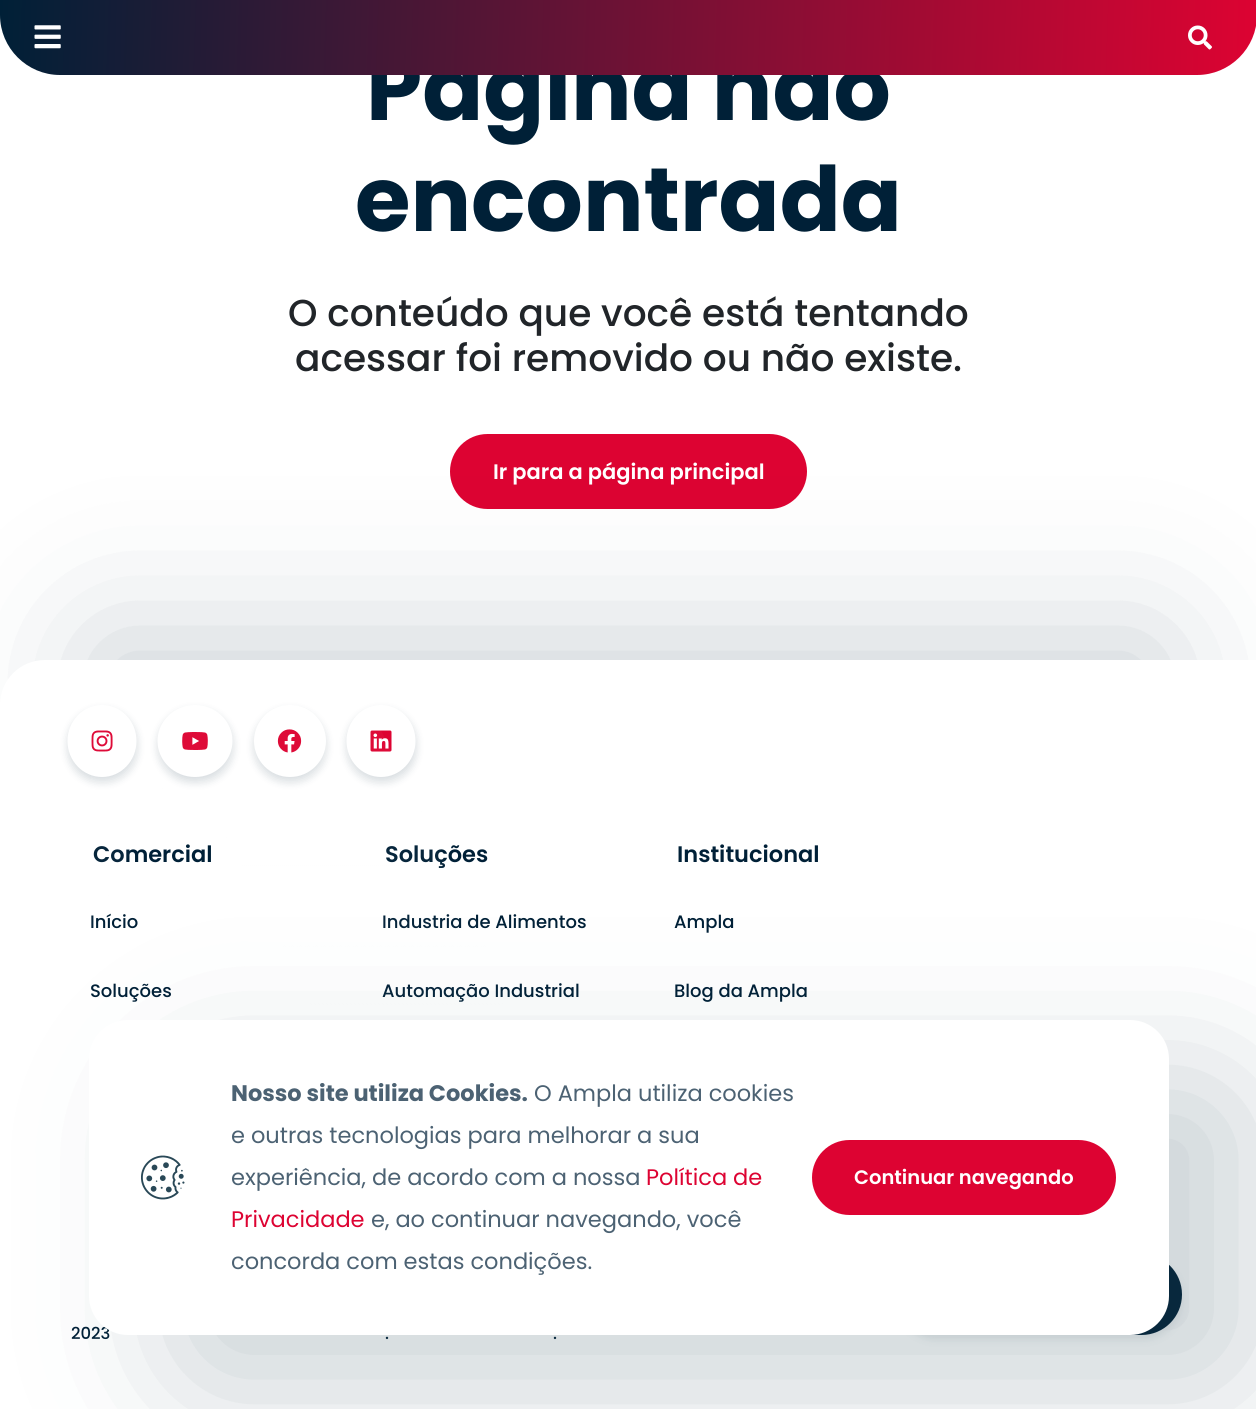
#include <cairo/cairo.h>
#include <math.h>
#include <stddef.h>


static void rounded_rect(cairo_t *cr, double x, double y, double w, double h, double r) {
  cairo_new_sub_path(cr);
  cairo_arc(cr, x + w - r, y + h - r, r, 0, M_PI / 2);
  cairo_arc(cr, x + r, y + h - r, r, M_PI / 2, M_PI);
  cairo_arc(cr, x + r, y + r, r, M_PI, 1.5 * M_PI);
  cairo_arc(cr, x + w - r, y + r, r, 1.5 * M_PI, 2 * M_PI);
  cairo_close_path(cr);
}

static void draw_shadow(cairo_t *cr, double x, double y, double w, double h, double r, double blur, double alpha) {
  cairo_push_group_with_content(cr, CAIRO_CONTENT_ALPHA);
  cairo_set_operator(cr, CAIRO_OPERATOR_SOURCE);
  for (int i = 15; i >= -15 && fmin(w, h) + blur * i / 3 > 0; i -= 2) {
    double e = blur * i / 6;
    cairo_set_source_rgba(cr, 0, 0, 0, alpha * erfc((i - 1) / 8.5) / 2);
    rounded_rect(cr, x - e, y - e, w + 2 * e, h + 2 * e, fmax(0, fmin(r + e + blur * .6, fmin(w, h) / 2 + e)));
    cairo_fill(cr);
  }
  cairo_pattern_t *soft = cairo_pop_group(cr);
  cairo_mask(cr, soft);
  cairo_pattern_destroy(soft);
}

static void draw_image(cairo_t *cr, const char *path, double x, double y, double w, double h) {
  cairo_surface_t *image = cairo_image_surface_create_from_png(path);
  cairo_save(cr);
  cairo_set_source_surface(cr, image, x, y);
  cairo_rectangle(cr, x, y, w, h);
  cairo_fill(cr);
  cairo_restore(cr);
  cairo_surface_destroy(image);
}

static void draw(cairo_t *cr) {
  cairo_pattern_t *gradient;
  cairo_set_source_rgb(cr, 1, 1, 1);
  cairo_paint(cr);
  cairo_set_source_rgb(cr, 221 / 255.0, 3 / 255.0, 50 / 255.0);
  rounded_rect(cr, 450, 434, 357, 75, 37.5);
  cairo_fill(cr);
  cairo_set_source_rgb(cr, 0, 32 / 255.0, 55 / 255.0);
  draw_shadow(cr, 95, 638, 1068, 126, 0, 75, 0.2);
  cairo_set_source_rgb(cr, 1, 1, 1);
  cairo_new_path(cr);
  cairo_move_to(cr, 45, 660);
  cairo_line_to(cr, 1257, 660);
  cairo_line_to(cr, 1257, 1365);
  cairo_curve_to(cr, 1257, 1390, 1237, 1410, 1212, 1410);
  cairo_line_to(cr, 0, 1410);
  cairo_line_to(cr, 0, 705);
  cairo_curve_to(cr, 0, 680, 20, 660, 45, 660);
  cairo_close_path(cr);
  cairo_fill(cr);
  cairo_set_source_rgb(cr, 0, 32 / 255.0, 55 / 255.0);
  draw_shadow(cr, 68, 710, 69, 72, 34.5, 4.5, 0.16);
  cairo_set_source_rgb(cr, 1, 1, 1);
  cairo_new_path(cr);
  cairo_move_to(cr, 102, 705);
  cairo_curve_to(cr, 121, 705, 136.5, 721, 136.5, 741);
  cairo_curve_to(cr, 136.5, 761, 121, 777, 102, 777);
  cairo_curve_to(cr, 83, 777, 67.5, 761, 67.5, 741);
  cairo_curve_to(cr, 67.5, 721, 83, 705, 102, 705);
  cairo_close_path(cr);
  cairo_fill(cr);
  draw_image(cr, "images/4.png", 91, 730, 22, 22);
  cairo_set_source_rgb(cr, 0, 32 / 255.0, 55 / 255.0);
  draw_shadow(cr, 158, 710, 75, 72, 36, 4.5, 0.16);
  cairo_set_source_rgb(cr, 1, 1, 1);
  cairo_new_path(cr);
  cairo_move_to(cr, 195, 705);
  cairo_curve_to(cr, 215.5, 705, 232.5, 721, 232.5, 741);
  cairo_curve_to(cr, 232.5, 761, 215.5, 777, 195, 777);
  cairo_curve_to(cr, 174.5, 777, 157.5, 761, 157.5, 741);
  cairo_curve_to(cr, 157.5, 721, 174.5, 705, 195, 705);
  cairo_close_path(cr);
  cairo_fill(cr);
  draw_image(cr, "images/5.png", 182, 732, 26, 18);
  cairo_set_source_rgb(cr, 0, 32 / 255.0, 55 / 255.0);
  draw_shadow(cr, 254, 710, 72, 72, 36, 4.5, 0.16);
  cairo_set_source_rgb(cr, 1, 1, 1);
  cairo_arc(cr, 290, 741, 36, 0, 2 * M_PI);
  cairo_fill(cr);
  draw_image(cr, "images/6.png", 277, 729, 25, 24);
  cairo_set_source_rgb(cr, 0, 32 / 255.0, 55 / 255.0);
  draw_shadow(cr, 347, 710, 69, 72, 34.5, 4.5, 0.16);
  cairo_set_source_rgb(cr, 1, 1, 1);
  cairo_new_path(cr);
  cairo_move_to(cr, 381, 705);
  cairo_curve_to(cr, 400, 705, 415.5, 721, 415.5, 741);
  cairo_curve_to(cr, 415.5, 761, 400, 777, 381, 777);
  cairo_curve_to(cr, 362, 777, 346.5, 761, 346.5, 741);
  cairo_curve_to(cr, 346.5, 721, 362, 705, 381, 705);
  cairo_close_path(cr);
  cairo_fill(cr);
  draw_image(cr, "images/7.png", 370, 730, 22, 22);
  cairo_set_source_rgb(cr, 41 / 255.0, 72 / 255.0, 87 / 255.0);
  draw_shadow(cr, 897, 1259, 285, 81, 40.5, 4, 0.1);
  cairo_set_source_rgb(cr, 0, 32 / 255.0, 55 / 255.0);
  rounded_rect(cr, 897, 1254, 285, 81, 40.5);
  cairo_fill(cr);
  cairo_select_font_face(cr, "Poppins", CAIRO_FONT_SLANT_NORMAL, CAIRO_FONT_WEIGHT_BOLD);
  cairo_set_font_size(cr, 90);
  cairo_move_to(cr, 366, 120);
  cairo_show_text(cr, "Página não");
  gradient = cairo_pattern_create_linear(-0.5, 16, 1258, 59);
  cairo_pattern_add_color_stop_rgba(gradient, 0, 0, 32 / 255.0, 55 / 255.0, 1);
  cairo_pattern_add_color_stop_rgba(gradient, 1, 221 / 255.0, 3 / 255.0, 50 / 255.0, 1);
  cairo_set_source(cr, gradient);
  cairo_pattern_destroy(gradient);
  cairo_new_path(cr);
  cairo_move_to(cr, 0, 0);
  cairo_line_to(cr, 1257, 0);
  cairo_line_to(cr, 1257, 15);
  cairo_curve_to(cr, 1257, 48, 1230, 75, 1197, 75);
  cairo_line_to(cr, 60, 75);
  cairo_curve_to(cr, 27, 75, 0, 48, 0, 15);
  cairo_close_path(cr);
  cairo_fill(cr);
  draw_image(cr, "images/1.png", 34, 25, 27, 24);
  draw_image(cr, "images/2.png", 1188, 25, 24, 25);
  cairo_set_source_rgb(cr, 0, 32 / 255.0, 55 / 255.0);
  cairo_move_to(cr, 355, 231);
  cairo_show_text(cr, "encontrada");
  cairo_select_font_face(cr, "Poppins Medium", CAIRO_FONT_SLANT_NORMAL, CAIRO_FONT_WEIGHT_NORMAL);
  cairo_set_font_size(cr, 37.5);
  cairo_set_source_rgb(cr, 33 / 255.0, 37 / 255.0, 41 / 255.0);
  cairo_move_to(cr, 288, 326);
  cairo_show_text(cr, "O conteúdo que você está tentando");
  cairo_move_to(cr, 295, 371);
  cairo_show_text(cr, "acessar foi removido ou não existe.");
  cairo_select_font_face(cr, "Poppins SemiBold", CAIRO_FONT_SLANT_NORMAL, CAIRO_FONT_WEIGHT_NORMAL);
  cairo_set_font_size(cr, 21);
  cairo_set_source_rgb(cr, 1, 1, 1);
  cairo_move_to(cr, 493, 479);
  cairo_show_text(cr, "Ir para a página principal");
  cairo_set_font_size(cr, 22.5);
  cairo_set_source_rgb(cr, 0, 32 / 255.0, 55 / 255.0);
  cairo_move_to(cr, 93, 862);
  cairo_show_text(cr, "Comercial");
  cairo_select_font_face(cr, "Poppins Medium", CAIRO_FONT_SLANT_NORMAL, CAIRO_FONT_WEIGHT_NORMAL);
  cairo_set_font_size(cr, 18);
  cairo_move_to(cr, 90, 928);
  cairo_show_text(cr, "Início");
  cairo_move_to(cr, 90, 997);
  cairo_show_text(cr, "Soluções");
  cairo_select_font_face(cr, "Poppins SemiBold", CAIRO_FONT_SLANT_NORMAL, CAIRO_FONT_WEIGHT_NORMAL);
  cairo_set_font_size(cr, 22.5);
  cairo_move_to(cr, 385, 862);
  cairo_show_text(cr, "Soluções");
  cairo_select_font_face(cr, "Poppins Medium", CAIRO_FONT_SLANT_NORMAL, CAIRO_FONT_WEIGHT_NORMAL);
  cairo_set_font_size(cr, 18);
  cairo_move_to(cr, 382, 928);
  cairo_show_text(cr, "Industria de Alimentos");
  cairo_move_to(cr, 382, 997);
  cairo_show_text(cr, "Automação Industrial");
  cairo_select_font_face(cr, "Poppins SemiBold", CAIRO_FONT_SLANT_NORMAL, CAIRO_FONT_WEIGHT_NORMAL);
  cairo_set_font_size(cr, 22.5);
  cairo_move_to(cr, 677, 862);
  cairo_show_text(cr, "Institucional");
  cairo_select_font_face(cr, "Poppins Medium", CAIRO_FONT_SLANT_NORMAL, CAIRO_FONT_WEIGHT_NORMAL);
  cairo_set_font_size(cr, 18);
  cairo_move_to(cr, 674, 928);
  cairo_show_text(cr, "Ampla");
  cairo_move_to(cr, 674, 997);
  cairo_show_text(cr, "Blog da Ampla");
  cairo_set_font_size(cr, 16.5);
  cairo_move_to(cr, 71, 1339);
  cairo_show_text(cr, "2023");
  cairo_move_to(cr, 385, 1339);
  cairo_show_text(cr, ".");
  draw_image(cr, "images/3.png", 91, 729, 412, 610);
  cairo_move_to(cr, 553, 1339);
  cairo_show_text(cr, ".");
  cairo_set_source_rgb(cr, 41 / 255.0, 72 / 255.0, 87 / 255.0);
  draw_shadow(cr, 171, 1077, 1080, 315, 39, 74, 0.24);
  cairo_set_source_rgb(cr, 1, 1, 1);
  rounded_rect(cr, 89, 1020, 1080, 315, 39);
  cairo_fill(cr);
  draw_image(cr, "images/8.png", 141, 1155, 44, 45);
  cairo_select_font_face(cr, "Poppins", CAIRO_FONT_SLANT_NORMAL, CAIRO_FONT_WEIGHT_BOLD);
  cairo_set_font_size(cr, 22.5);
  cairo_set_source_rgb(cr, 76 / 255.0, 98 / 255.0, 115 / 255.0);
  cairo_move_to(cr, 231, 1101);
  cairo_show_text(cr, "Nosso site utiliza Cookies.");
  cairo_select_font_face(cr, "Poppins", CAIRO_FONT_SLANT_NORMAL, CAIRO_FONT_WEIGHT_NORMAL);
  cairo_move_to(cr, 534, 1101);
  cairo_show_text(cr, "O Ampla utiliza cookies");
  cairo_move_to(cr, 231, 1143);
  cairo_show_text(cr, "e outras tecnologias para melhorar a sua");
  cairo_move_to(cr, 231, 1185);
  cairo_show_text(cr, "experiência, de acordo com a nossa");
  cairo_set_source_rgb(cr, 221 / 255.0, 3 / 255.0, 50 / 255.0);
  cairo_move_to(cr, 646, 1185);
  cairo_show_text(cr, "Política de");
  cairo_move_to(cr, 231, 1227);
  cairo_show_text(cr, "Privacidade");
  cairo_set_source_rgb(cr, 76 / 255.0, 98 / 255.0, 115 / 255.0);
  cairo_move_to(cr, 371, 1227);
  cairo_show_text(cr, "e, ao continuar navegando, você");
  cairo_move_to(cr, 231, 1269);
  cairo_show_text(cr, "concorda com estas condições.");
  cairo_set_source_rgb(cr, 221 / 255.0, 3 / 255.0, 50 / 255.0);
  rounded_rect(cr, 812, 1140, 304, 75, 37.5);
  cairo_fill(cr);
  cairo_select_font_face(cr, "Poppins SemiBold", CAIRO_FONT_SLANT_NORMAL, CAIRO_FONT_WEIGHT_NORMAL);
  cairo_set_font_size(cr, 19.5);
  cairo_set_source_rgb(cr, 1, 1, 1);
  cairo_move_to(cr, 854, 1184);
  cairo_show_text(cr, "Continuar navegando");
}

int main(void) {
  cairo_surface_t *surface = cairo_image_surface_create(CAIRO_FORMAT_RGB24, 1256, 1409);
  cairo_t *cr = cairo_create(surface);
  cairo_font_options_t *options = cairo_font_options_create();
  cairo_font_options_set_hint_metrics(options, CAIRO_HINT_METRICS_OFF);
  cairo_font_options_set_hint_style(options, CAIRO_HINT_STYLE_NONE);
  cairo_set_font_options(cr, options);
  cairo_set_miter_limit(cr, 4);
  draw(cr);
  cairo_surface_write_to_png(surface, "out.png");
  cairo_font_options_destroy(options);
  cairo_destroy(cr);
  cairo_surface_destroy(surface);
  return 0;
}
